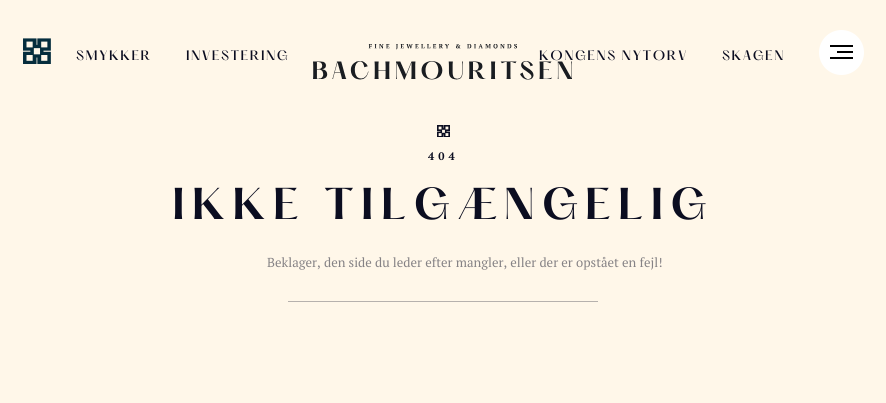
#include <cairo/cairo.h>
#include <math.h>
#include <stddef.h>


static void draw_spaced(cairo_t *cr, double x, double y, const char *s, double letter, double word) {
  cairo_move_to(cr, x, y);
  while (*s) {
    char ch[5] = {0};
    int n = 0;
    do ch[n++] = *s++; while ((*s & 0xC0) == 0x80);
    cairo_show_text(cr, ch);
    cairo_rel_move_to(cr, letter + word * (*ch == ' '), 0);
  }
}

static void draw_image(cairo_t *cr, const char *path, double x, double y, double w, double h) {
  cairo_surface_t *image = cairo_image_surface_create_from_png(path);
  cairo_save(cr);
  cairo_set_source_surface(cr, image, x, y);
  cairo_rectangle(cr, x, y, w, h);
  cairo_fill(cr);
  cairo_restore(cr);
  cairo_surface_destroy(image);
}

static void draw(cairo_t *cr) {
  cairo_set_source_rgb(cr, 1, 247 / 255.0, 233 / 255.0);
  cairo_paint(cr);
  draw_image(cr, "images/2.png", 23, 38, 28, 26);
  cairo_set_source_rgb(cr, 1, 1, 1);
  cairo_arc(cr, 841.5, 52.5, 22.5, 0, 2 * M_PI);
  cairo_fill(cr);
  cairo_set_source_rgb(cr, 0, 0, 0);
  cairo_rectangle(cr, 830, 45, 23, 2);
  cairo_fill(cr);
  cairo_rectangle(cr, 837, 51, 16, 2);
  cairo_fill(cr);
  cairo_rectangle(cr, 830, 57, 23, 2);
  cairo_fill(cr);
  draw_image(cr, "images/3.png", 437, 125, 13, 12);
  cairo_set_source_rgb(cr, 182 / 255.0, 177 / 255.0, 173 / 255.0);
  cairo_rectangle(cr, 288, 301, 310, 1);
  cairo_fill(cr);
  cairo_select_font_face(cr, "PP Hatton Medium", CAIRO_FONT_SLANT_NORMAL, CAIRO_FONT_WEIGHT_NORMAL);
  cairo_set_font_size(cr, 12);
  cairo_set_source_rgb(cr, 11 / 255.0, 13 / 255.0, 32 / 255.0);
  draw_spaced(cr, 76, 60, "SMYKKER", 1.5, 0);
  draw_spaced(cr, 186, 60, "INVESTERING", 1.5, 0);
  draw_spaced(cr, 539, 60, "KONGENS NYTORV", 1.5, 0);
  draw_image(cr, "images/1.png", 313, 44, 259, 36);
  draw_spaced(cr, 722, 60, "SKAGEN", 1.5, 0);
  cairo_select_font_face(cr, "PT Serif", CAIRO_FONT_SLANT_NORMAL, CAIRO_FONT_WEIGHT_BOLD);
  cairo_set_font_size(cr, 11);
  draw_spaced(cr, 428, 160, "404", 4, 0);
  cairo_select_font_face(cr, "PP Hatton SemiBold", CAIRO_FONT_SLANT_NORMAL, CAIRO_FONT_WEIGHT_NORMAL);
  cairo_set_font_size(cr, 39);
  draw_spaced(cr, 172, 219, "IKKE TILGÆNGELIG", 7, 0);
  cairo_select_font_face(cr, "PT Serif", CAIRO_FONT_SLANT_NORMAL, CAIRO_FONT_WEIGHT_NORMAL);
  cairo_set_font_size(cr, 13);
  cairo_set_source_rgb(cr, 133 / 255.0, 130 / 255.0, 133 / 255.0);
  cairo_move_to(cr, 267, 267);
  cairo_show_text(cr, "Beklager, den side du leder efter mangler, eller der er opstået en fejl!");
}

int main(void) {
  cairo_surface_t *surface = cairo_image_surface_create(CAIRO_FORMAT_RGB24, 886, 403);
  cairo_t *cr = cairo_create(surface);
  cairo_font_options_t *options = cairo_font_options_create();
  cairo_font_options_set_hint_metrics(options, CAIRO_HINT_METRICS_OFF);
  cairo_font_options_set_hint_style(options, CAIRO_HINT_STYLE_NONE);
  cairo_set_font_options(cr, options);
  cairo_set_miter_limit(cr, 4);
  draw(cr);
  cairo_surface_write_to_png(surface, "out.png");
  cairo_font_options_destroy(options);
  cairo_destroy(cr);
  cairo_surface_destroy(surface);
  return 0;
}
